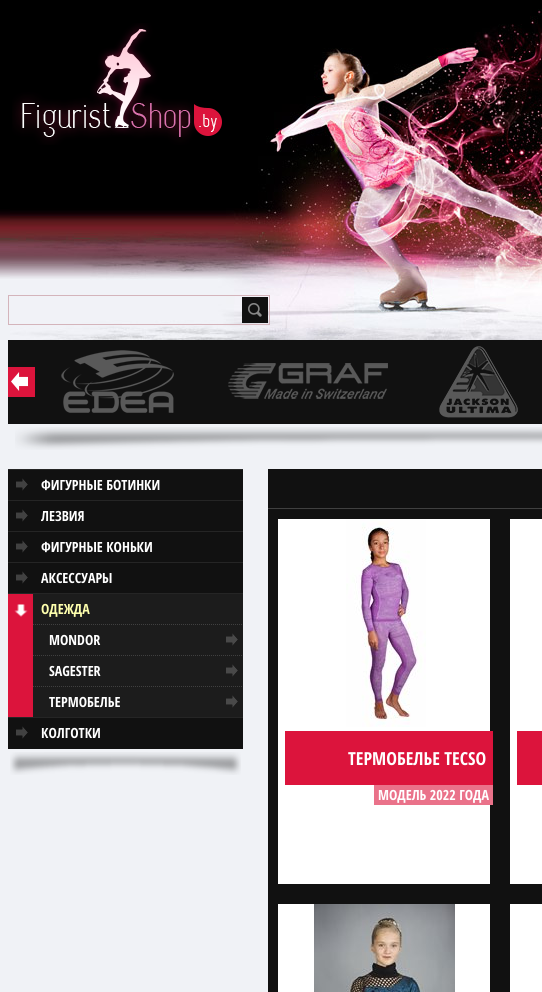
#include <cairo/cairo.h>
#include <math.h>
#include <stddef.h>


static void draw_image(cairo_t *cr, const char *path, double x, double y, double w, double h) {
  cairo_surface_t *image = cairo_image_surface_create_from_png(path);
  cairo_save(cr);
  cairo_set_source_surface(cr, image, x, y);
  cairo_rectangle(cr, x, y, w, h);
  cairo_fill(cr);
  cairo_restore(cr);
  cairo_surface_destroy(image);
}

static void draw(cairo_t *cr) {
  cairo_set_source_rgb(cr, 240 / 255.0, 242 / 255.0, 246 / 255.0);
  cairo_paint(cr);
  draw_image(cr, "images/1.png", 0, 0, 542, 279);
  draw_image(cr, "images/2.png", 10, 9, 532, 331);
  draw_image(cr, "images/3.png", 12, 23, 210, 122);
  cairo_rectangle(cr, 8.5, 295.5, 261, 29);
  cairo_set_source_rgb(cr, 212 / 255.0, 180 / 255.0, 187 / 255.0);
  cairo_set_line_width(cr, 1);
  cairo_stroke(cr);
  cairo_set_source_rgb(cr, 17 / 255.0, 17 / 255.0, 17 / 255.0);
  cairo_rectangle(cr, 242, 297, 26, 26);
  cairo_fill(cr);
  draw_image(cr, "images/4.png", 248, 303, 14, 14);
  cairo_rectangle(cr, 8, 340, 534, 84);
  cairo_fill(cr);
  cairo_set_source_rgb(cr, 220 / 255.0, 20 / 255.0, 60 / 255.0);
  cairo_rectangle(cr, 8, 367, 27, 30);
  cairo_fill(cr);
  draw_image(cr, "images/5.png", 11, 372, 17, 19);
  draw_image(cr, "images/6.png", 61, 350, 113, 63);
  draw_image(cr, "images/7.png", 228, 363, 160, 36);
  draw_image(cr, "images/8.png", 439, 346, 79, 72);
  draw_image(cr, "images/9.png", 15, 427, 527, 23);
  cairo_set_source_rgb(cr, 17 / 255.0, 17 / 255.0, 17 / 255.0);
  cairo_rectangle(cr, 8, 470, 235, 279);
  cairo_fill(cr);
  cairo_set_source_rgb(cr, 37 / 255.0, 37 / 255.0, 37 / 255.0);
  cairo_rectangle(cr, 8, 469, 235, 1);
  cairo_fill(cr);
  draw_image(cr, "images/10.png", 16, 478, 12, 13);
  cairo_rectangle(cr, 8, 500, 235, 1);
  cairo_fill(cr);
  draw_image(cr, "images/10.png", 16, 509, 12, 13);
  cairo_rectangle(cr, 8, 531, 235, 1);
  cairo_fill(cr);
  draw_image(cr, "images/10.png", 16, 540, 12, 13);
  cairo_rectangle(cr, 8, 562, 235, 1);
  cairo_fill(cr);
  draw_image(cr, "images/10.png", 16, 571, 12, 13);
  cairo_set_source_rgb(cr, 220 / 255.0, 20 / 255.0, 60 / 255.0);
  cairo_rectangle(cr, 8, 594, 25, 123);
  cairo_fill(cr);
  cairo_set_source_rgb(cr, 37 / 255.0, 37 / 255.0, 37 / 255.0);
  cairo_rectangle(cr, 8, 593, 235, 1);
  cairo_fill(cr);
  draw_image(cr, "images/11.png", 14, 604, 14, 13);
  cairo_set_source_rgb(cr, 28 / 255.0, 28 / 255.0, 28 / 255.0);
  cairo_rectangle(cr, 33, 594, 210, 123);
  cairo_fill(cr);
  cairo_new_path(cr);
  cairo_move_to(cr, 33, 624.5);
  cairo_line_to(cr, 243, 624.5);
  cairo_set_source_rgb(cr, 64 / 255.0, 64 / 255.0, 64 / 255.0);
  cairo_set_dash(cr, (double[]){1, 1}, 2, 0);
  cairo_stroke(cr);
  draw_image(cr, "images/12.png", 226, 633, 12, 13);
  cairo_new_path(cr);
  cairo_move_to(cr, 33, 655.5);
  cairo_line_to(cr, 243, 655.5);
  cairo_stroke(cr);
  draw_image(cr, "images/12.png", 226, 664, 12, 13);
  cairo_new_path(cr);
  cairo_move_to(cr, 33, 686.5);
  cairo_line_to(cr, 243, 686.5);
  cairo_stroke(cr);
  draw_image(cr, "images/12.png", 226, 695, 12, 13);
  cairo_set_source_rgb(cr, 37 / 255.0, 37 / 255.0, 37 / 255.0);
  cairo_rectangle(cr, 8, 717, 235, 1);
  cairo_fill(cr);
  draw_image(cr, "images/10.png", 16, 726, 12, 13);
  draw_image(cr, "images/13.png", 10, 752, 231, 23);
  cairo_set_source_rgb(cr, 17 / 255.0, 17 / 255.0, 17 / 255.0);
  cairo_rectangle(cr, 268, 469, 274, 523);
  cairo_fill(cr);
  cairo_set_source_rgb(cr, 64 / 255.0, 64 / 255.0, 64 / 255.0);
  cairo_rectangle(cr, 268, 508, 274, 1);
  cairo_fill(cr);
  cairo_set_source_rgb(cr, 1, 1, 1);
  cairo_rectangle(cr, 278, 519, 212, 365);
  cairo_fill(cr);
  draw_image(cr, "images/14.png", 346, 519, 80, 208);
  cairo_set_source_rgb(cr, 220 / 255.0, 20 / 255.0, 60 / 255.0);
  cairo_rectangle(cr, 285, 731, 208, 54);
  cairo_fill(cr);
  cairo_set_source_rgb(cr, 234 / 255.0, 114 / 255.0, 138 / 255.0);
  cairo_rectangle(cr, 374, 785, 119, 20);
  cairo_fill(cr);
  cairo_set_source_rgb(cr, 1, 1, 1);
  cairo_rectangle(cr, 510, 519, 32, 365);
  cairo_fill(cr);
  cairo_set_source_rgb(cr, 220 / 255.0, 20 / 255.0, 60 / 255.0);
  cairo_rectangle(cr, 517, 731, 25, 54);
  cairo_fill(cr);
  cairo_set_source_rgb(cr, 1, 1, 1);
  cairo_rectangle(cr, 278, 904, 212, 88);
  cairo_fill(cr);
  draw_image(cr, "images/15.png", 314, 904, 141, 88);
  cairo_rectangle(cr, 510, 904, 32, 88);
  cairo_fill(cr);
  cairo_select_font_face(cr, "Open Sans Condensed", CAIRO_FONT_SLANT_NORMAL, CAIRO_FONT_WEIGHT_BOLD);
  cairo_set_font_size(cr, 14);
  cairo_move_to(cr, 41, 490);
  cairo_show_text(cr, "ФИГУРНЫЕ БОТИНКИ");
  cairo_move_to(cr, 41, 521);
  cairo_show_text(cr, "ЛЕЗВИЯ");
  cairo_move_to(cr, 41, 552);
  cairo_show_text(cr, "ФИГУРНЫЕ КОНЬКИ");
  cairo_move_to(cr, 41, 583);
  cairo_show_text(cr, "АКСЕССУАРЫ");
  cairo_set_source_rgb(cr, 254 / 255.0, 1, 173 / 255.0);
  cairo_move_to(cr, 41, 614);
  cairo_show_text(cr, "ОДЕЖДА");
  cairo_set_source_rgb(cr, 1, 1, 1);
  cairo_move_to(cr, 49, 645);
  cairo_show_text(cr, "MONDOR");
  cairo_move_to(cr, 49, 676);
  cairo_show_text(cr, "SAGESTER");
  cairo_move_to(cr, 49, 707);
  cairo_show_text(cr, "ТЕРМОБЕЛЬЕ");
  cairo_move_to(cr, 41, 738);
  cairo_show_text(cr, "КОЛГОТКИ");
  cairo_set_font_size(cr, 18);
  cairo_move_to(cr, 348, 765);
  cairo_show_text(cr, "ТЕРМОБЕЛЬЕ TECSO");
  cairo_set_font_size(cr, 14);
  cairo_move_to(cr, 378, 800);
  cairo_show_text(cr, "МОДЕЛЬ 2022 ГОДА");
}

int main(void) {
  cairo_surface_t *surface = cairo_image_surface_create(CAIRO_FORMAT_RGB24, 542, 992);
  cairo_t *cr = cairo_create(surface);
  cairo_font_options_t *options = cairo_font_options_create();
  cairo_font_options_set_hint_metrics(options, CAIRO_HINT_METRICS_OFF);
  cairo_font_options_set_hint_style(options, CAIRO_HINT_STYLE_NONE);
  cairo_set_font_options(cr, options);
  cairo_set_miter_limit(cr, 4);
  draw(cr);
  cairo_surface_write_to_png(surface, "out.png");
  cairo_font_options_destroy(options);
  cairo_destroy(cr);
  cairo_surface_destroy(surface);
  return 0;
}
